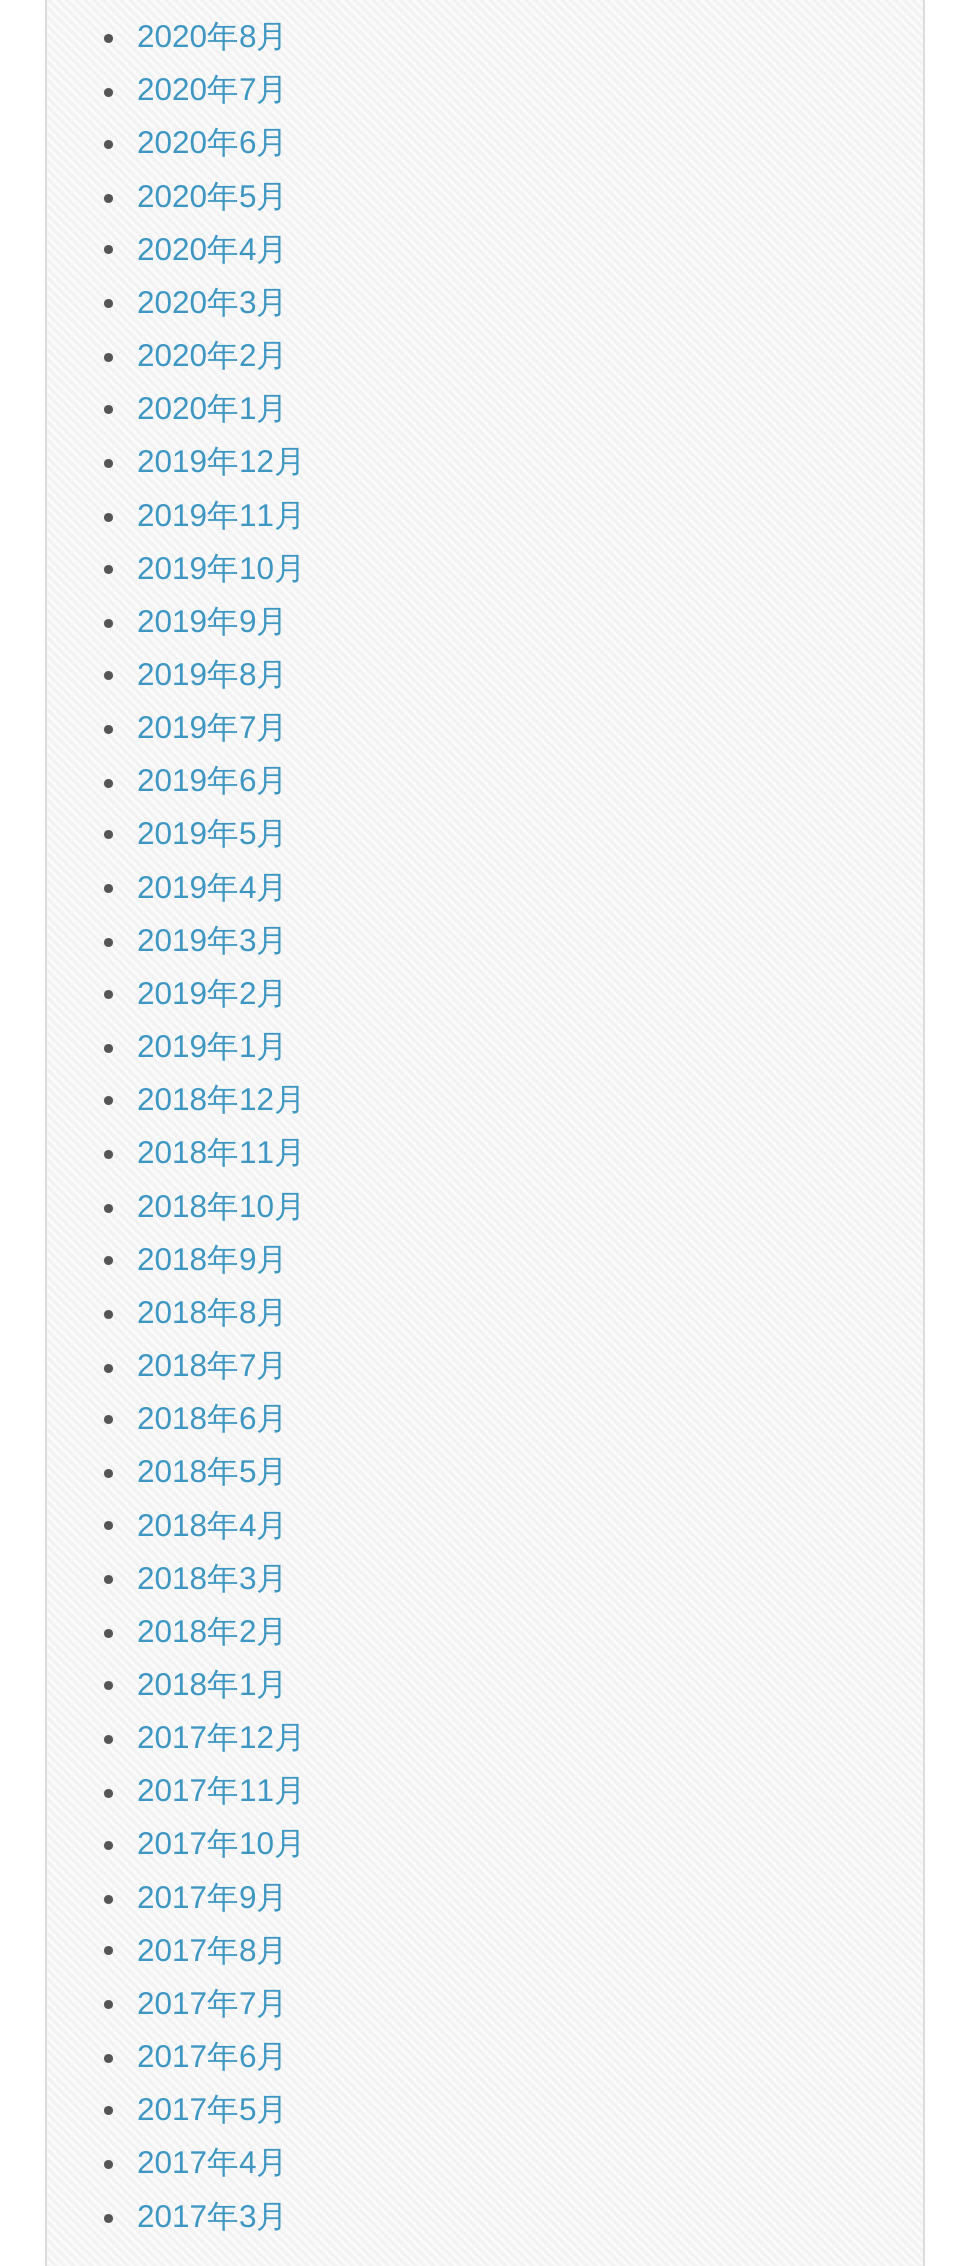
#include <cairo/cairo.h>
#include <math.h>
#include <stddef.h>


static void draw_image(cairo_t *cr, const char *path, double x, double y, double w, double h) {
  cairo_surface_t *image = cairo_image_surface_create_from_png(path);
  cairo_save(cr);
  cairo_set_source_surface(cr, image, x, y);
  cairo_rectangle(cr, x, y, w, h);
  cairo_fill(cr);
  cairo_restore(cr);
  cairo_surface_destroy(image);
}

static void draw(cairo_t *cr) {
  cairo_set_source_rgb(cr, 1, 1, 1);
  cairo_paint(cr);
  draw_image(cr, "images/1.png", 47, 0, 876, 2266);
  cairo_rectangle(cr, 46, -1, 878, 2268);
  cairo_set_source_rgb(cr, 221 / 255.0, 221 / 255.0, 221 / 255.0);
  cairo_stroke(cr);
  cairo_set_source_rgb(cr, 85 / 255.0, 85 / 255.0, 85 / 255.0);
  cairo_arc(cr, 108.5, 38.5, 4.5, 0, 2 * M_PI);
  cairo_fill(cr);
  cairo_arc(cr, 108.5, 92.5, 4.5, 0, 2 * M_PI);
  cairo_fill(cr);
  cairo_arc(cr, 108.5, 144.5, 4.5, 0, 2 * M_PI);
  cairo_fill(cr);
  cairo_arc(cr, 108.5, 198.5, 4.5, 0, 2 * M_PI);
  cairo_fill(cr);
  cairo_arc(cr, 108.5, 249.5, 4.5, 0, 2 * M_PI);
  cairo_fill(cr);
  cairo_arc(cr, 108.5, 303.5, 4.5, 0, 2 * M_PI);
  cairo_fill(cr);
  cairo_arc(cr, 108.5, 357.5, 4.5, 0, 2 * M_PI);
  cairo_fill(cr);
  cairo_arc(cr, 108.5, 409.5, 4.5, 0, 2 * M_PI);
  cairo_fill(cr);
  cairo_arc(cr, 108.5, 463.5, 4.5, 0, 2 * M_PI);
  cairo_fill(cr);
  cairo_arc(cr, 108.5, 517.5, 4.5, 0, 2 * M_PI);
  cairo_fill(cr);
  cairo_arc(cr, 108.5, 569.5, 4.5, 0, 2 * M_PI);
  cairo_fill(cr);
  cairo_arc(cr, 108.5, 623.5, 4.5, 0, 2 * M_PI);
  cairo_fill(cr);
  cairo_arc(cr, 108.5, 675.5, 4.5, 0, 2 * M_PI);
  cairo_fill(cr);
  cairo_arc(cr, 108.5, 729.5, 4.5, 0, 2 * M_PI);
  cairo_fill(cr);
  cairo_arc(cr, 108.5, 783.5, 4.5, 0, 2 * M_PI);
  cairo_fill(cr);
  cairo_arc(cr, 108.5, 834.5, 4.5, 0, 2 * M_PI);
  cairo_fill(cr);
  cairo_arc(cr, 108.5, 888.5, 4.5, 0, 2 * M_PI);
  cairo_fill(cr);
  cairo_arc(cr, 108.5, 942.5, 4.5, 0, 2 * M_PI);
  cairo_fill(cr);
  cairo_arc(cr, 108.5, 994.5, 4.5, 0, 2 * M_PI);
  cairo_fill(cr);
  cairo_arc(cr, 108.5, 1048.5, 4.5, 0, 2 * M_PI);
  cairo_fill(cr);
  cairo_arc(cr, 108.5, 1100.5, 4.5, 0, 2 * M_PI);
  cairo_fill(cr);
  cairo_arc(cr, 108.5, 1154.5, 4.5, 0, 2 * M_PI);
  cairo_fill(cr);
  cairo_arc(cr, 108.5, 1208.5, 4.5, 0, 2 * M_PI);
  cairo_fill(cr);
  cairo_arc(cr, 108.5, 1260.5, 4.5, 0, 2 * M_PI);
  cairo_fill(cr);
  cairo_arc(cr, 108.5, 1314.5, 4.5, 0, 2 * M_PI);
  cairo_fill(cr);
  cairo_arc(cr, 108.5, 1368.5, 4.5, 0, 2 * M_PI);
  cairo_fill(cr);
  cairo_arc(cr, 108.5, 1419.5, 4.5, 0, 2 * M_PI);
  cairo_fill(cr);
  cairo_arc(cr, 108.5, 1473.5, 4.5, 0, 2 * M_PI);
  cairo_fill(cr);
  cairo_arc(cr, 108.5, 1525.5, 4.5, 0, 2 * M_PI);
  cairo_fill(cr);
  cairo_arc(cr, 108.5, 1579.5, 4.5, 0, 2 * M_PI);
  cairo_fill(cr);
  cairo_arc(cr, 108.5, 1633.5, 4.5, 0, 2 * M_PI);
  cairo_fill(cr);
  cairo_arc(cr, 108.5, 1685.5, 4.5, 0, 2 * M_PI);
  cairo_fill(cr);
  cairo_arc(cr, 108.5, 1739.5, 4.5, 0, 2 * M_PI);
  cairo_fill(cr);
  cairo_arc(cr, 108.5, 1793.5, 4.5, 0, 2 * M_PI);
  cairo_fill(cr);
  cairo_arc(cr, 108.5, 1845.5, 4.5, 0, 2 * M_PI);
  cairo_fill(cr);
  cairo_arc(cr, 108.5, 1899.5, 4.5, 0, 2 * M_PI);
  cairo_fill(cr);
  cairo_arc(cr, 108.5, 1950.5, 4.5, 0, 2 * M_PI);
  cairo_fill(cr);
  cairo_arc(cr, 108.5, 2004.5, 4.5, 0, 2 * M_PI);
  cairo_fill(cr);
  cairo_arc(cr, 108.5, 2058.5, 4.5, 0, 2 * M_PI);
  cairo_fill(cr);
  cairo_arc(cr, 108.5, 2110.5, 4.5, 0, 2 * M_PI);
  cairo_fill(cr);
  cairo_arc(cr, 108.5, 2164.5, 4.5, 0, 2 * M_PI);
  cairo_fill(cr);
  cairo_arc(cr, 108.5, 2218.5, 4.5, 0, 2 * M_PI);
  cairo_fill(cr);
  cairo_select_font_face(cr, "Liberation Sans", CAIRO_FONT_SLANT_NORMAL, CAIRO_FONT_WEIGHT_NORMAL);
  cairo_set_font_size(cr, 31.5);
  cairo_set_source_rgb(cr, 61 / 255.0, 151 / 255.0, 194 / 255.0);
  cairo_move_to(cr, 137, 47);
  cairo_show_text(cr, "2020");
  cairo_select_font_face(cr, "WenQuanYi Zen Hei Medium", CAIRO_FONT_SLANT_NORMAL, CAIRO_FONT_WEIGHT_NORMAL);
  cairo_move_to(cr, 207, 47);
  cairo_show_text(cr, "年");
  cairo_select_font_face(cr, "Liberation Sans", CAIRO_FONT_SLANT_NORMAL, CAIRO_FONT_WEIGHT_NORMAL);
  cairo_move_to(cr, 239, 47);
  cairo_show_text(cr, "8");
  cairo_select_font_face(cr, "WenQuanYi Zen Hei Medium", CAIRO_FONT_SLANT_NORMAL, CAIRO_FONT_WEIGHT_NORMAL);
  cairo_move_to(cr, 256, 47);
  cairo_show_text(cr, "月");
  cairo_select_font_face(cr, "Liberation Sans", CAIRO_FONT_SLANT_NORMAL, CAIRO_FONT_WEIGHT_NORMAL);
  cairo_move_to(cr, 137, 100);
  cairo_show_text(cr, "2020");
  cairo_select_font_face(cr, "WenQuanYi Zen Hei Medium", CAIRO_FONT_SLANT_NORMAL, CAIRO_FONT_WEIGHT_NORMAL);
  cairo_move_to(cr, 207, 100);
  cairo_show_text(cr, "年");
  cairo_select_font_face(cr, "Liberation Sans", CAIRO_FONT_SLANT_NORMAL, CAIRO_FONT_WEIGHT_NORMAL);
  cairo_move_to(cr, 239, 100);
  cairo_show_text(cr, "7");
  cairo_select_font_face(cr, "WenQuanYi Zen Hei Medium", CAIRO_FONT_SLANT_NORMAL, CAIRO_FONT_WEIGHT_NORMAL);
  cairo_move_to(cr, 256, 100);
  cairo_show_text(cr, "月");
  cairo_select_font_face(cr, "Liberation Sans", CAIRO_FONT_SLANT_NORMAL, CAIRO_FONT_WEIGHT_NORMAL);
  cairo_move_to(cr, 137, 153);
  cairo_show_text(cr, "2020");
  cairo_select_font_face(cr, "WenQuanYi Zen Hei Medium", CAIRO_FONT_SLANT_NORMAL, CAIRO_FONT_WEIGHT_NORMAL);
  cairo_move_to(cr, 207, 153);
  cairo_show_text(cr, "年");
  cairo_select_font_face(cr, "Liberation Sans", CAIRO_FONT_SLANT_NORMAL, CAIRO_FONT_WEIGHT_NORMAL);
  cairo_move_to(cr, 239, 153);
  cairo_show_text(cr, "6");
  cairo_select_font_face(cr, "WenQuanYi Zen Hei Medium", CAIRO_FONT_SLANT_NORMAL, CAIRO_FONT_WEIGHT_NORMAL);
  cairo_move_to(cr, 256, 153);
  cairo_show_text(cr, "月");
  cairo_select_font_face(cr, "Liberation Sans", CAIRO_FONT_SLANT_NORMAL, CAIRO_FONT_WEIGHT_NORMAL);
  cairo_move_to(cr, 137, 207);
  cairo_show_text(cr, "2020");
  cairo_select_font_face(cr, "WenQuanYi Zen Hei Medium", CAIRO_FONT_SLANT_NORMAL, CAIRO_FONT_WEIGHT_NORMAL);
  cairo_move_to(cr, 207, 207);
  cairo_show_text(cr, "年");
  cairo_select_font_face(cr, "Liberation Sans", CAIRO_FONT_SLANT_NORMAL, CAIRO_FONT_WEIGHT_NORMAL);
  cairo_move_to(cr, 239, 207);
  cairo_show_text(cr, "5");
  cairo_select_font_face(cr, "WenQuanYi Zen Hei Medium", CAIRO_FONT_SLANT_NORMAL, CAIRO_FONT_WEIGHT_NORMAL);
  cairo_move_to(cr, 256, 207);
  cairo_show_text(cr, "月");
  cairo_select_font_face(cr, "Liberation Sans", CAIRO_FONT_SLANT_NORMAL, CAIRO_FONT_WEIGHT_NORMAL);
  cairo_move_to(cr, 137, 260);
  cairo_show_text(cr, "2020");
  cairo_select_font_face(cr, "WenQuanYi Zen Hei Medium", CAIRO_FONT_SLANT_NORMAL, CAIRO_FONT_WEIGHT_NORMAL);
  cairo_move_to(cr, 207, 260);
  cairo_show_text(cr, "年");
  cairo_select_font_face(cr, "Liberation Sans", CAIRO_FONT_SLANT_NORMAL, CAIRO_FONT_WEIGHT_NORMAL);
  cairo_move_to(cr, 239, 260);
  cairo_show_text(cr, "4");
  cairo_select_font_face(cr, "WenQuanYi Zen Hei Medium", CAIRO_FONT_SLANT_NORMAL, CAIRO_FONT_WEIGHT_NORMAL);
  cairo_move_to(cr, 256, 260);
  cairo_show_text(cr, "月");
  cairo_select_font_face(cr, "Liberation Sans", CAIRO_FONT_SLANT_NORMAL, CAIRO_FONT_WEIGHT_NORMAL);
  cairo_move_to(cr, 137, 313);
  cairo_show_text(cr, "2020");
  cairo_select_font_face(cr, "WenQuanYi Zen Hei Medium", CAIRO_FONT_SLANT_NORMAL, CAIRO_FONT_WEIGHT_NORMAL);
  cairo_move_to(cr, 207, 313);
  cairo_show_text(cr, "年");
  cairo_select_font_face(cr, "Liberation Sans", CAIRO_FONT_SLANT_NORMAL, CAIRO_FONT_WEIGHT_NORMAL);
  cairo_move_to(cr, 239, 313);
  cairo_show_text(cr, "3");
  cairo_select_font_face(cr, "WenQuanYi Zen Hei Medium", CAIRO_FONT_SLANT_NORMAL, CAIRO_FONT_WEIGHT_NORMAL);
  cairo_move_to(cr, 256, 313);
  cairo_show_text(cr, "月");
  cairo_select_font_face(cr, "Liberation Sans", CAIRO_FONT_SLANT_NORMAL, CAIRO_FONT_WEIGHT_NORMAL);
  cairo_move_to(cr, 137, 366);
  cairo_show_text(cr, "2020");
  cairo_select_font_face(cr, "WenQuanYi Zen Hei Medium", CAIRO_FONT_SLANT_NORMAL, CAIRO_FONT_WEIGHT_NORMAL);
  cairo_move_to(cr, 207, 366);
  cairo_show_text(cr, "年");
  cairo_select_font_face(cr, "Liberation Sans", CAIRO_FONT_SLANT_NORMAL, CAIRO_FONT_WEIGHT_NORMAL);
  cairo_move_to(cr, 239, 366);
  cairo_show_text(cr, "2");
  cairo_select_font_face(cr, "WenQuanYi Zen Hei Medium", CAIRO_FONT_SLANT_NORMAL, CAIRO_FONT_WEIGHT_NORMAL);
  cairo_move_to(cr, 256, 366);
  cairo_show_text(cr, "月");
  cairo_select_font_face(cr, "Liberation Sans", CAIRO_FONT_SLANT_NORMAL, CAIRO_FONT_WEIGHT_NORMAL);
  cairo_move_to(cr, 137, 419);
  cairo_show_text(cr, "2020");
  cairo_select_font_face(cr, "WenQuanYi Zen Hei Medium", CAIRO_FONT_SLANT_NORMAL, CAIRO_FONT_WEIGHT_NORMAL);
  cairo_move_to(cr, 207, 419);
  cairo_show_text(cr, "年");
  cairo_select_font_face(cr, "Liberation Sans", CAIRO_FONT_SLANT_NORMAL, CAIRO_FONT_WEIGHT_NORMAL);
  cairo_move_to(cr, 239, 419);
  cairo_show_text(cr, "1");
  cairo_select_font_face(cr, "WenQuanYi Zen Hei Medium", CAIRO_FONT_SLANT_NORMAL, CAIRO_FONT_WEIGHT_NORMAL);
  cairo_move_to(cr, 256, 419);
  cairo_show_text(cr, "月");
  cairo_select_font_face(cr, "Liberation Sans", CAIRO_FONT_SLANT_NORMAL, CAIRO_FONT_WEIGHT_NORMAL);
  cairo_move_to(cr, 137, 472);
  cairo_show_text(cr, "2019");
  cairo_select_font_face(cr, "WenQuanYi Zen Hei Medium", CAIRO_FONT_SLANT_NORMAL, CAIRO_FONT_WEIGHT_NORMAL);
  cairo_move_to(cr, 207, 472);
  cairo_show_text(cr, "年");
  cairo_select_font_face(cr, "Liberation Sans", CAIRO_FONT_SLANT_NORMAL, CAIRO_FONT_WEIGHT_NORMAL);
  cairo_move_to(cr, 239, 472);
  cairo_show_text(cr, "12");
  cairo_select_font_face(cr, "WenQuanYi Zen Hei Medium", CAIRO_FONT_SLANT_NORMAL, CAIRO_FONT_WEIGHT_NORMAL);
  cairo_move_to(cr, 274, 472);
  cairo_show_text(cr, "月");
  cairo_select_font_face(cr, "Liberation Sans", CAIRO_FONT_SLANT_NORMAL, CAIRO_FONT_WEIGHT_NORMAL);
  cairo_move_to(cr, 137, 526);
  cairo_show_text(cr, "2019");
  cairo_select_font_face(cr, "WenQuanYi Zen Hei Medium", CAIRO_FONT_SLANT_NORMAL, CAIRO_FONT_WEIGHT_NORMAL);
  cairo_move_to(cr, 207, 526);
  cairo_show_text(cr, "年");
  cairo_select_font_face(cr, "Liberation Sans", CAIRO_FONT_SLANT_NORMAL, CAIRO_FONT_WEIGHT_NORMAL);
  cairo_move_to(cr, 239, 526);
  cairo_show_text(cr, "11");
  cairo_select_font_face(cr, "WenQuanYi Zen Hei Medium", CAIRO_FONT_SLANT_NORMAL, CAIRO_FONT_WEIGHT_NORMAL);
  cairo_move_to(cr, 274, 526);
  cairo_show_text(cr, "月");
  cairo_select_font_face(cr, "Liberation Sans", CAIRO_FONT_SLANT_NORMAL, CAIRO_FONT_WEIGHT_NORMAL);
  cairo_move_to(cr, 137, 579);
  cairo_show_text(cr, "2019");
  cairo_select_font_face(cr, "WenQuanYi Zen Hei Medium", CAIRO_FONT_SLANT_NORMAL, CAIRO_FONT_WEIGHT_NORMAL);
  cairo_move_to(cr, 207, 579);
  cairo_show_text(cr, "年");
  cairo_select_font_face(cr, "Liberation Sans", CAIRO_FONT_SLANT_NORMAL, CAIRO_FONT_WEIGHT_NORMAL);
  cairo_move_to(cr, 239, 579);
  cairo_show_text(cr, "10");
  cairo_select_font_face(cr, "WenQuanYi Zen Hei Medium", CAIRO_FONT_SLANT_NORMAL, CAIRO_FONT_WEIGHT_NORMAL);
  cairo_move_to(cr, 274, 579);
  cairo_show_text(cr, "月");
  cairo_select_font_face(cr, "Liberation Sans", CAIRO_FONT_SLANT_NORMAL, CAIRO_FONT_WEIGHT_NORMAL);
  cairo_move_to(cr, 137, 632);
  cairo_show_text(cr, "2019");
  cairo_select_font_face(cr, "WenQuanYi Zen Hei Medium", CAIRO_FONT_SLANT_NORMAL, CAIRO_FONT_WEIGHT_NORMAL);
  cairo_move_to(cr, 207, 632);
  cairo_show_text(cr, "年");
  cairo_select_font_face(cr, "Liberation Sans", CAIRO_FONT_SLANT_NORMAL, CAIRO_FONT_WEIGHT_NORMAL);
  cairo_move_to(cr, 239, 632);
  cairo_show_text(cr, "9");
  cairo_select_font_face(cr, "WenQuanYi Zen Hei Medium", CAIRO_FONT_SLANT_NORMAL, CAIRO_FONT_WEIGHT_NORMAL);
  cairo_move_to(cr, 256, 632);
  cairo_show_text(cr, "月");
  cairo_select_font_face(cr, "Liberation Sans", CAIRO_FONT_SLANT_NORMAL, CAIRO_FONT_WEIGHT_NORMAL);
  cairo_move_to(cr, 137, 685);
  cairo_show_text(cr, "2019");
  cairo_select_font_face(cr, "WenQuanYi Zen Hei Medium", CAIRO_FONT_SLANT_NORMAL, CAIRO_FONT_WEIGHT_NORMAL);
  cairo_move_to(cr, 207, 685);
  cairo_show_text(cr, "年");
  cairo_select_font_face(cr, "Liberation Sans", CAIRO_FONT_SLANT_NORMAL, CAIRO_FONT_WEIGHT_NORMAL);
  cairo_move_to(cr, 239, 685);
  cairo_show_text(cr, "8");
  cairo_select_font_face(cr, "WenQuanYi Zen Hei Medium", CAIRO_FONT_SLANT_NORMAL, CAIRO_FONT_WEIGHT_NORMAL);
  cairo_move_to(cr, 256, 685);
  cairo_show_text(cr, "月");
  cairo_select_font_face(cr, "Liberation Sans", CAIRO_FONT_SLANT_NORMAL, CAIRO_FONT_WEIGHT_NORMAL);
  cairo_move_to(cr, 137, 738);
  cairo_show_text(cr, "2019");
  cairo_select_font_face(cr, "WenQuanYi Zen Hei Medium", CAIRO_FONT_SLANT_NORMAL, CAIRO_FONT_WEIGHT_NORMAL);
  cairo_move_to(cr, 207, 738);
  cairo_show_text(cr, "年");
  cairo_select_font_face(cr, "Liberation Sans", CAIRO_FONT_SLANT_NORMAL, CAIRO_FONT_WEIGHT_NORMAL);
  cairo_move_to(cr, 239, 738);
  cairo_show_text(cr, "7");
  cairo_select_font_face(cr, "WenQuanYi Zen Hei Medium", CAIRO_FONT_SLANT_NORMAL, CAIRO_FONT_WEIGHT_NORMAL);
  cairo_move_to(cr, 256, 738);
  cairo_show_text(cr, "月");
  cairo_select_font_face(cr, "Liberation Sans", CAIRO_FONT_SLANT_NORMAL, CAIRO_FONT_WEIGHT_NORMAL);
  cairo_move_to(cr, 137, 791);
  cairo_show_text(cr, "2019");
  cairo_select_font_face(cr, "WenQuanYi Zen Hei Medium", CAIRO_FONT_SLANT_NORMAL, CAIRO_FONT_WEIGHT_NORMAL);
  cairo_move_to(cr, 207, 791);
  cairo_show_text(cr, "年");
  cairo_select_font_face(cr, "Liberation Sans", CAIRO_FONT_SLANT_NORMAL, CAIRO_FONT_WEIGHT_NORMAL);
  cairo_move_to(cr, 239, 791);
  cairo_show_text(cr, "6");
  cairo_select_font_face(cr, "WenQuanYi Zen Hei Medium", CAIRO_FONT_SLANT_NORMAL, CAIRO_FONT_WEIGHT_NORMAL);
  cairo_move_to(cr, 256, 791);
  cairo_show_text(cr, "月");
  cairo_select_font_face(cr, "Liberation Sans", CAIRO_FONT_SLANT_NORMAL, CAIRO_FONT_WEIGHT_NORMAL);
  cairo_move_to(cr, 137, 844);
  cairo_show_text(cr, "2019");
  cairo_select_font_face(cr, "WenQuanYi Zen Hei Medium", CAIRO_FONT_SLANT_NORMAL, CAIRO_FONT_WEIGHT_NORMAL);
  cairo_move_to(cr, 207, 844);
  cairo_show_text(cr, "年");
  cairo_select_font_face(cr, "Liberation Sans", CAIRO_FONT_SLANT_NORMAL, CAIRO_FONT_WEIGHT_NORMAL);
  cairo_move_to(cr, 239, 844);
  cairo_show_text(cr, "5");
  cairo_select_font_face(cr, "WenQuanYi Zen Hei Medium", CAIRO_FONT_SLANT_NORMAL, CAIRO_FONT_WEIGHT_NORMAL);
  cairo_move_to(cr, 256, 844);
  cairo_show_text(cr, "月");
  cairo_select_font_face(cr, "Liberation Sans", CAIRO_FONT_SLANT_NORMAL, CAIRO_FONT_WEIGHT_NORMAL);
  cairo_move_to(cr, 137, 898);
  cairo_show_text(cr, "2019");
  cairo_select_font_face(cr, "WenQuanYi Zen Hei Medium", CAIRO_FONT_SLANT_NORMAL, CAIRO_FONT_WEIGHT_NORMAL);
  cairo_move_to(cr, 207, 898);
  cairo_show_text(cr, "年");
  cairo_select_font_face(cr, "Liberation Sans", CAIRO_FONT_SLANT_NORMAL, CAIRO_FONT_WEIGHT_NORMAL);
  cairo_move_to(cr, 239, 898);
  cairo_show_text(cr, "4");
  cairo_select_font_face(cr, "WenQuanYi Zen Hei Medium", CAIRO_FONT_SLANT_NORMAL, CAIRO_FONT_WEIGHT_NORMAL);
  cairo_move_to(cr, 256, 898);
  cairo_show_text(cr, "月");
  cairo_select_font_face(cr, "Liberation Sans", CAIRO_FONT_SLANT_NORMAL, CAIRO_FONT_WEIGHT_NORMAL);
  cairo_move_to(cr, 137, 951);
  cairo_show_text(cr, "2019");
  cairo_select_font_face(cr, "WenQuanYi Zen Hei Medium", CAIRO_FONT_SLANT_NORMAL, CAIRO_FONT_WEIGHT_NORMAL);
  cairo_move_to(cr, 207, 951);
  cairo_show_text(cr, "年");
  cairo_select_font_face(cr, "Liberation Sans", CAIRO_FONT_SLANT_NORMAL, CAIRO_FONT_WEIGHT_NORMAL);
  cairo_move_to(cr, 239, 951);
  cairo_show_text(cr, "3");
  cairo_select_font_face(cr, "WenQuanYi Zen Hei Medium", CAIRO_FONT_SLANT_NORMAL, CAIRO_FONT_WEIGHT_NORMAL);
  cairo_move_to(cr, 256, 951);
  cairo_show_text(cr, "月");
  cairo_select_font_face(cr, "Liberation Sans", CAIRO_FONT_SLANT_NORMAL, CAIRO_FONT_WEIGHT_NORMAL);
  cairo_move_to(cr, 137, 1004);
  cairo_show_text(cr, "2019");
  cairo_select_font_face(cr, "WenQuanYi Zen Hei Medium", CAIRO_FONT_SLANT_NORMAL, CAIRO_FONT_WEIGHT_NORMAL);
  cairo_move_to(cr, 207, 1004);
  cairo_show_text(cr, "年");
  cairo_select_font_face(cr, "Liberation Sans", CAIRO_FONT_SLANT_NORMAL, CAIRO_FONT_WEIGHT_NORMAL);
  cairo_move_to(cr, 239, 1004);
  cairo_show_text(cr, "2");
  cairo_select_font_face(cr, "WenQuanYi Zen Hei Medium", CAIRO_FONT_SLANT_NORMAL, CAIRO_FONT_WEIGHT_NORMAL);
  cairo_move_to(cr, 256, 1004);
  cairo_show_text(cr, "月");
  cairo_select_font_face(cr, "Liberation Sans", CAIRO_FONT_SLANT_NORMAL, CAIRO_FONT_WEIGHT_NORMAL);
  cairo_move_to(cr, 137, 1057);
  cairo_show_text(cr, "2019");
  cairo_select_font_face(cr, "WenQuanYi Zen Hei Medium", CAIRO_FONT_SLANT_NORMAL, CAIRO_FONT_WEIGHT_NORMAL);
  cairo_move_to(cr, 207, 1057);
  cairo_show_text(cr, "年");
  cairo_select_font_face(cr, "Liberation Sans", CAIRO_FONT_SLANT_NORMAL, CAIRO_FONT_WEIGHT_NORMAL);
  cairo_move_to(cr, 239, 1057);
  cairo_show_text(cr, "1");
  cairo_select_font_face(cr, "WenQuanYi Zen Hei Medium", CAIRO_FONT_SLANT_NORMAL, CAIRO_FONT_WEIGHT_NORMAL);
  cairo_move_to(cr, 256, 1057);
  cairo_show_text(cr, "月");
  cairo_select_font_face(cr, "Liberation Sans", CAIRO_FONT_SLANT_NORMAL, CAIRO_FONT_WEIGHT_NORMAL);
  cairo_move_to(cr, 137, 1110);
  cairo_show_text(cr, "2018");
  cairo_select_font_face(cr, "WenQuanYi Zen Hei Medium", CAIRO_FONT_SLANT_NORMAL, CAIRO_FONT_WEIGHT_NORMAL);
  cairo_move_to(cr, 207, 1110);
  cairo_show_text(cr, "年");
  cairo_select_font_face(cr, "Liberation Sans", CAIRO_FONT_SLANT_NORMAL, CAIRO_FONT_WEIGHT_NORMAL);
  cairo_move_to(cr, 239, 1110);
  cairo_show_text(cr, "12");
  cairo_select_font_face(cr, "WenQuanYi Zen Hei Medium", CAIRO_FONT_SLANT_NORMAL, CAIRO_FONT_WEIGHT_NORMAL);
  cairo_move_to(cr, 274, 1110);
  cairo_show_text(cr, "月");
  cairo_select_font_face(cr, "Liberation Sans", CAIRO_FONT_SLANT_NORMAL, CAIRO_FONT_WEIGHT_NORMAL);
  cairo_move_to(cr, 137, 1163);
  cairo_show_text(cr, "2018");
  cairo_select_font_face(cr, "WenQuanYi Zen Hei Medium", CAIRO_FONT_SLANT_NORMAL, CAIRO_FONT_WEIGHT_NORMAL);
  cairo_move_to(cr, 207, 1163);
  cairo_show_text(cr, "年");
  cairo_select_font_face(cr, "Liberation Sans", CAIRO_FONT_SLANT_NORMAL, CAIRO_FONT_WEIGHT_NORMAL);
  cairo_move_to(cr, 239, 1163);
  cairo_show_text(cr, "11");
  cairo_select_font_face(cr, "WenQuanYi Zen Hei Medium", CAIRO_FONT_SLANT_NORMAL, CAIRO_FONT_WEIGHT_NORMAL);
  cairo_move_to(cr, 274, 1163);
  cairo_show_text(cr, "月");
  cairo_select_font_face(cr, "Liberation Sans", CAIRO_FONT_SLANT_NORMAL, CAIRO_FONT_WEIGHT_NORMAL);
  cairo_move_to(cr, 137, 1217);
  cairo_show_text(cr, "2018");
  cairo_select_font_face(cr, "WenQuanYi Zen Hei Medium", CAIRO_FONT_SLANT_NORMAL, CAIRO_FONT_WEIGHT_NORMAL);
  cairo_move_to(cr, 207, 1217);
  cairo_show_text(cr, "年");
  cairo_select_font_face(cr, "Liberation Sans", CAIRO_FONT_SLANT_NORMAL, CAIRO_FONT_WEIGHT_NORMAL);
  cairo_move_to(cr, 239, 1217);
  cairo_show_text(cr, "10");
  cairo_select_font_face(cr, "WenQuanYi Zen Hei Medium", CAIRO_FONT_SLANT_NORMAL, CAIRO_FONT_WEIGHT_NORMAL);
  cairo_move_to(cr, 274, 1217);
  cairo_show_text(cr, "月");
  cairo_select_font_face(cr, "Liberation Sans", CAIRO_FONT_SLANT_NORMAL, CAIRO_FONT_WEIGHT_NORMAL);
  cairo_move_to(cr, 137, 1270);
  cairo_show_text(cr, "2018");
  cairo_select_font_face(cr, "WenQuanYi Zen Hei Medium", CAIRO_FONT_SLANT_NORMAL, CAIRO_FONT_WEIGHT_NORMAL);
  cairo_move_to(cr, 207, 1270);
  cairo_show_text(cr, "年");
  cairo_select_font_face(cr, "Liberation Sans", CAIRO_FONT_SLANT_NORMAL, CAIRO_FONT_WEIGHT_NORMAL);
  cairo_move_to(cr, 239, 1270);
  cairo_show_text(cr, "9");
  cairo_select_font_face(cr, "WenQuanYi Zen Hei Medium", CAIRO_FONT_SLANT_NORMAL, CAIRO_FONT_WEIGHT_NORMAL);
  cairo_move_to(cr, 256, 1270);
  cairo_show_text(cr, "月");
  cairo_select_font_face(cr, "Liberation Sans", CAIRO_FONT_SLANT_NORMAL, CAIRO_FONT_WEIGHT_NORMAL);
  cairo_move_to(cr, 137, 1323);
  cairo_show_text(cr, "2018");
  cairo_select_font_face(cr, "WenQuanYi Zen Hei Medium", CAIRO_FONT_SLANT_NORMAL, CAIRO_FONT_WEIGHT_NORMAL);
  cairo_move_to(cr, 207, 1323);
  cairo_show_text(cr, "年");
  cairo_select_font_face(cr, "Liberation Sans", CAIRO_FONT_SLANT_NORMAL, CAIRO_FONT_WEIGHT_NORMAL);
  cairo_move_to(cr, 239, 1323);
  cairo_show_text(cr, "8");
  cairo_select_font_face(cr, "WenQuanYi Zen Hei Medium", CAIRO_FONT_SLANT_NORMAL, CAIRO_FONT_WEIGHT_NORMAL);
  cairo_move_to(cr, 256, 1323);
  cairo_show_text(cr, "月");
  cairo_select_font_face(cr, "Liberation Sans", CAIRO_FONT_SLANT_NORMAL, CAIRO_FONT_WEIGHT_NORMAL);
  cairo_move_to(cr, 137, 1376);
  cairo_show_text(cr, "2018");
  cairo_select_font_face(cr, "WenQuanYi Zen Hei Medium", CAIRO_FONT_SLANT_NORMAL, CAIRO_FONT_WEIGHT_NORMAL);
  cairo_move_to(cr, 207, 1376);
  cairo_show_text(cr, "年");
  cairo_select_font_face(cr, "Liberation Sans", CAIRO_FONT_SLANT_NORMAL, CAIRO_FONT_WEIGHT_NORMAL);
  cairo_move_to(cr, 239, 1376);
  cairo_show_text(cr, "7");
  cairo_select_font_face(cr, "WenQuanYi Zen Hei Medium", CAIRO_FONT_SLANT_NORMAL, CAIRO_FONT_WEIGHT_NORMAL);
  cairo_move_to(cr, 256, 1376);
  cairo_show_text(cr, "月");
  cairo_select_font_face(cr, "Liberation Sans", CAIRO_FONT_SLANT_NORMAL, CAIRO_FONT_WEIGHT_NORMAL);
  cairo_move_to(cr, 137, 1429);
  cairo_show_text(cr, "2018");
  cairo_select_font_face(cr, "WenQuanYi Zen Hei Medium", CAIRO_FONT_SLANT_NORMAL, CAIRO_FONT_WEIGHT_NORMAL);
  cairo_move_to(cr, 207, 1429);
  cairo_show_text(cr, "年");
  cairo_select_font_face(cr, "Liberation Sans", CAIRO_FONT_SLANT_NORMAL, CAIRO_FONT_WEIGHT_NORMAL);
  cairo_move_to(cr, 239, 1429);
  cairo_show_text(cr, "6");
  cairo_select_font_face(cr, "WenQuanYi Zen Hei Medium", CAIRO_FONT_SLANT_NORMAL, CAIRO_FONT_WEIGHT_NORMAL);
  cairo_move_to(cr, 256, 1429);
  cairo_show_text(cr, "月");
  cairo_select_font_face(cr, "Liberation Sans", CAIRO_FONT_SLANT_NORMAL, CAIRO_FONT_WEIGHT_NORMAL);
  cairo_move_to(cr, 137, 1482);
  cairo_show_text(cr, "2018");
  cairo_select_font_face(cr, "WenQuanYi Zen Hei Medium", CAIRO_FONT_SLANT_NORMAL, CAIRO_FONT_WEIGHT_NORMAL);
  cairo_move_to(cr, 207, 1482);
  cairo_show_text(cr, "年");
  cairo_select_font_face(cr, "Liberation Sans", CAIRO_FONT_SLANT_NORMAL, CAIRO_FONT_WEIGHT_NORMAL);
  cairo_move_to(cr, 239, 1482);
  cairo_show_text(cr, "5");
  cairo_select_font_face(cr, "WenQuanYi Zen Hei Medium", CAIRO_FONT_SLANT_NORMAL, CAIRO_FONT_WEIGHT_NORMAL);
  cairo_move_to(cr, 256, 1482);
  cairo_show_text(cr, "月");
  cairo_select_font_face(cr, "Liberation Sans", CAIRO_FONT_SLANT_NORMAL, CAIRO_FONT_WEIGHT_NORMAL);
  cairo_move_to(cr, 137, 1536);
  cairo_show_text(cr, "2018");
  cairo_select_font_face(cr, "WenQuanYi Zen Hei Medium", CAIRO_FONT_SLANT_NORMAL, CAIRO_FONT_WEIGHT_NORMAL);
  cairo_move_to(cr, 207, 1536);
  cairo_show_text(cr, "年");
  cairo_select_font_face(cr, "Liberation Sans", CAIRO_FONT_SLANT_NORMAL, CAIRO_FONT_WEIGHT_NORMAL);
  cairo_move_to(cr, 239, 1536);
  cairo_show_text(cr, "4");
  cairo_select_font_face(cr, "WenQuanYi Zen Hei Medium", CAIRO_FONT_SLANT_NORMAL, CAIRO_FONT_WEIGHT_NORMAL);
  cairo_move_to(cr, 256, 1536);
  cairo_show_text(cr, "月");
  cairo_select_font_face(cr, "Liberation Sans", CAIRO_FONT_SLANT_NORMAL, CAIRO_FONT_WEIGHT_NORMAL);
  cairo_move_to(cr, 137, 1589);
  cairo_show_text(cr, "2018");
  cairo_select_font_face(cr, "WenQuanYi Zen Hei Medium", CAIRO_FONT_SLANT_NORMAL, CAIRO_FONT_WEIGHT_NORMAL);
  cairo_move_to(cr, 207, 1589);
  cairo_show_text(cr, "年");
  cairo_select_font_face(cr, "Liberation Sans", CAIRO_FONT_SLANT_NORMAL, CAIRO_FONT_WEIGHT_NORMAL);
  cairo_move_to(cr, 239, 1589);
  cairo_show_text(cr, "3");
  cairo_select_font_face(cr, "WenQuanYi Zen Hei Medium", CAIRO_FONT_SLANT_NORMAL, CAIRO_FONT_WEIGHT_NORMAL);
  cairo_move_to(cr, 256, 1589);
  cairo_show_text(cr, "月");
  cairo_select_font_face(cr, "Liberation Sans", CAIRO_FONT_SLANT_NORMAL, CAIRO_FONT_WEIGHT_NORMAL);
  cairo_move_to(cr, 137, 1642);
  cairo_show_text(cr, "2018");
  cairo_select_font_face(cr, "WenQuanYi Zen Hei Medium", CAIRO_FONT_SLANT_NORMAL, CAIRO_FONT_WEIGHT_NORMAL);
  cairo_move_to(cr, 207, 1642);
  cairo_show_text(cr, "年");
  cairo_select_font_face(cr, "Liberation Sans", CAIRO_FONT_SLANT_NORMAL, CAIRO_FONT_WEIGHT_NORMAL);
  cairo_move_to(cr, 239, 1642);
  cairo_show_text(cr, "2");
  cairo_select_font_face(cr, "WenQuanYi Zen Hei Medium", CAIRO_FONT_SLANT_NORMAL, CAIRO_FONT_WEIGHT_NORMAL);
  cairo_move_to(cr, 256, 1642);
  cairo_show_text(cr, "月");
  cairo_select_font_face(cr, "Liberation Sans", CAIRO_FONT_SLANT_NORMAL, CAIRO_FONT_WEIGHT_NORMAL);
  cairo_move_to(cr, 137, 1695);
  cairo_show_text(cr, "2018");
  cairo_select_font_face(cr, "WenQuanYi Zen Hei Medium", CAIRO_FONT_SLANT_NORMAL, CAIRO_FONT_WEIGHT_NORMAL);
  cairo_move_to(cr, 207, 1695);
  cairo_show_text(cr, "年");
  cairo_select_font_face(cr, "Liberation Sans", CAIRO_FONT_SLANT_NORMAL, CAIRO_FONT_WEIGHT_NORMAL);
  cairo_move_to(cr, 239, 1695);
  cairo_show_text(cr, "1");
  cairo_select_font_face(cr, "WenQuanYi Zen Hei Medium", CAIRO_FONT_SLANT_NORMAL, CAIRO_FONT_WEIGHT_NORMAL);
  cairo_move_to(cr, 256, 1695);
  cairo_show_text(cr, "月");
  cairo_select_font_face(cr, "Liberation Sans", CAIRO_FONT_SLANT_NORMAL, CAIRO_FONT_WEIGHT_NORMAL);
  cairo_move_to(cr, 137, 1748);
  cairo_show_text(cr, "2017");
  cairo_select_font_face(cr, "WenQuanYi Zen Hei Medium", CAIRO_FONT_SLANT_NORMAL, CAIRO_FONT_WEIGHT_NORMAL);
  cairo_move_to(cr, 207, 1748);
  cairo_show_text(cr, "年");
  cairo_select_font_face(cr, "Liberation Sans", CAIRO_FONT_SLANT_NORMAL, CAIRO_FONT_WEIGHT_NORMAL);
  cairo_move_to(cr, 239, 1748);
  cairo_show_text(cr, "12");
  cairo_select_font_face(cr, "WenQuanYi Zen Hei Medium", CAIRO_FONT_SLANT_NORMAL, CAIRO_FONT_WEIGHT_NORMAL);
  cairo_move_to(cr, 274, 1748);
  cairo_show_text(cr, "月");
  cairo_select_font_face(cr, "Liberation Sans", CAIRO_FONT_SLANT_NORMAL, CAIRO_FONT_WEIGHT_NORMAL);
  cairo_move_to(cr, 137, 1801);
  cairo_show_text(cr, "2017");
  cairo_select_font_face(cr, "WenQuanYi Zen Hei Medium", CAIRO_FONT_SLANT_NORMAL, CAIRO_FONT_WEIGHT_NORMAL);
  cairo_move_to(cr, 207, 1801);
  cairo_show_text(cr, "年");
  cairo_select_font_face(cr, "Liberation Sans", CAIRO_FONT_SLANT_NORMAL, CAIRO_FONT_WEIGHT_NORMAL);
  cairo_move_to(cr, 239, 1801);
  cairo_show_text(cr, "11");
  cairo_select_font_face(cr, "WenQuanYi Zen Hei Medium", CAIRO_FONT_SLANT_NORMAL, CAIRO_FONT_WEIGHT_NORMAL);
  cairo_move_to(cr, 274, 1801);
  cairo_show_text(cr, "月");
  cairo_select_font_face(cr, "Liberation Sans", CAIRO_FONT_SLANT_NORMAL, CAIRO_FONT_WEIGHT_NORMAL);
  cairo_move_to(cr, 137, 1854);
  cairo_show_text(cr, "2017");
  cairo_select_font_face(cr, "WenQuanYi Zen Hei Medium", CAIRO_FONT_SLANT_NORMAL, CAIRO_FONT_WEIGHT_NORMAL);
  cairo_move_to(cr, 207, 1854);
  cairo_show_text(cr, "年");
  cairo_select_font_face(cr, "Liberation Sans", CAIRO_FONT_SLANT_NORMAL, CAIRO_FONT_WEIGHT_NORMAL);
  cairo_move_to(cr, 239, 1854);
  cairo_show_text(cr, "10");
  cairo_select_font_face(cr, "WenQuanYi Zen Hei Medium", CAIRO_FONT_SLANT_NORMAL, CAIRO_FONT_WEIGHT_NORMAL);
  cairo_move_to(cr, 274, 1854);
  cairo_show_text(cr, "月");
  cairo_select_font_face(cr, "Liberation Sans", CAIRO_FONT_SLANT_NORMAL, CAIRO_FONT_WEIGHT_NORMAL);
  cairo_move_to(cr, 137, 1908);
  cairo_show_text(cr, "2017");
  cairo_select_font_face(cr, "WenQuanYi Zen Hei Medium", CAIRO_FONT_SLANT_NORMAL, CAIRO_FONT_WEIGHT_NORMAL);
  cairo_move_to(cr, 207, 1908);
  cairo_show_text(cr, "年");
  cairo_select_font_face(cr, "Liberation Sans", CAIRO_FONT_SLANT_NORMAL, CAIRO_FONT_WEIGHT_NORMAL);
  cairo_move_to(cr, 239, 1908);
  cairo_show_text(cr, "9");
  cairo_select_font_face(cr, "WenQuanYi Zen Hei Medium", CAIRO_FONT_SLANT_NORMAL, CAIRO_FONT_WEIGHT_NORMAL);
  cairo_move_to(cr, 256, 1908);
  cairo_show_text(cr, "月");
  cairo_select_font_face(cr, "Liberation Sans", CAIRO_FONT_SLANT_NORMAL, CAIRO_FONT_WEIGHT_NORMAL);
  cairo_move_to(cr, 137, 1961);
  cairo_show_text(cr, "2017");
  cairo_select_font_face(cr, "WenQuanYi Zen Hei Medium", CAIRO_FONT_SLANT_NORMAL, CAIRO_FONT_WEIGHT_NORMAL);
  cairo_move_to(cr, 207, 1961);
  cairo_show_text(cr, "年");
  cairo_select_font_face(cr, "Liberation Sans", CAIRO_FONT_SLANT_NORMAL, CAIRO_FONT_WEIGHT_NORMAL);
  cairo_move_to(cr, 239, 1961);
  cairo_show_text(cr, "8");
  cairo_select_font_face(cr, "WenQuanYi Zen Hei Medium", CAIRO_FONT_SLANT_NORMAL, CAIRO_FONT_WEIGHT_NORMAL);
  cairo_move_to(cr, 256, 1961);
  cairo_show_text(cr, "月");
  cairo_select_font_face(cr, "Liberation Sans", CAIRO_FONT_SLANT_NORMAL, CAIRO_FONT_WEIGHT_NORMAL);
  cairo_move_to(cr, 137, 2014);
  cairo_show_text(cr, "2017");
  cairo_select_font_face(cr, "WenQuanYi Zen Hei Medium", CAIRO_FONT_SLANT_NORMAL, CAIRO_FONT_WEIGHT_NORMAL);
  cairo_move_to(cr, 207, 2014);
  cairo_show_text(cr, "年");
  cairo_select_font_face(cr, "Liberation Sans", CAIRO_FONT_SLANT_NORMAL, CAIRO_FONT_WEIGHT_NORMAL);
  cairo_move_to(cr, 239, 2014);
  cairo_show_text(cr, "7");
  cairo_select_font_face(cr, "WenQuanYi Zen Hei Medium", CAIRO_FONT_SLANT_NORMAL, CAIRO_FONT_WEIGHT_NORMAL);
  cairo_move_to(cr, 256, 2014);
  cairo_show_text(cr, "月");
  cairo_select_font_face(cr, "Liberation Sans", CAIRO_FONT_SLANT_NORMAL, CAIRO_FONT_WEIGHT_NORMAL);
  cairo_move_to(cr, 137, 2067);
  cairo_show_text(cr, "2017");
  cairo_select_font_face(cr, "WenQuanYi Zen Hei Medium", CAIRO_FONT_SLANT_NORMAL, CAIRO_FONT_WEIGHT_NORMAL);
  cairo_move_to(cr, 207, 2067);
  cairo_show_text(cr, "年");
  cairo_select_font_face(cr, "Liberation Sans", CAIRO_FONT_SLANT_NORMAL, CAIRO_FONT_WEIGHT_NORMAL);
  cairo_move_to(cr, 239, 2067);
  cairo_show_text(cr, "6");
  cairo_select_font_face(cr, "WenQuanYi Zen Hei Medium", CAIRO_FONT_SLANT_NORMAL, CAIRO_FONT_WEIGHT_NORMAL);
  cairo_move_to(cr, 256, 2067);
  cairo_show_text(cr, "月");
  cairo_select_font_face(cr, "Liberation Sans", CAIRO_FONT_SLANT_NORMAL, CAIRO_FONT_WEIGHT_NORMAL);
  cairo_move_to(cr, 137, 2120);
  cairo_show_text(cr, "2017");
  cairo_select_font_face(cr, "WenQuanYi Zen Hei Medium", CAIRO_FONT_SLANT_NORMAL, CAIRO_FONT_WEIGHT_NORMAL);
  cairo_move_to(cr, 207, 2120);
  cairo_show_text(cr, "年");
  cairo_select_font_face(cr, "Liberation Sans", CAIRO_FONT_SLANT_NORMAL, CAIRO_FONT_WEIGHT_NORMAL);
  cairo_move_to(cr, 239, 2120);
  cairo_show_text(cr, "5");
  cairo_select_font_face(cr, "WenQuanYi Zen Hei Medium", CAIRO_FONT_SLANT_NORMAL, CAIRO_FONT_WEIGHT_NORMAL);
  cairo_move_to(cr, 256, 2120);
  cairo_show_text(cr, "月");
  cairo_select_font_face(cr, "Liberation Sans", CAIRO_FONT_SLANT_NORMAL, CAIRO_FONT_WEIGHT_NORMAL);
  cairo_move_to(cr, 137, 2173);
  cairo_show_text(cr, "2017");
  cairo_select_font_face(cr, "WenQuanYi Zen Hei Medium", CAIRO_FONT_SLANT_NORMAL, CAIRO_FONT_WEIGHT_NORMAL);
  cairo_move_to(cr, 207, 2173);
  cairo_show_text(cr, "年");
  cairo_select_font_face(cr, "Liberation Sans", CAIRO_FONT_SLANT_NORMAL, CAIRO_FONT_WEIGHT_NORMAL);
  cairo_move_to(cr, 239, 2173);
  cairo_show_text(cr, "4");
  cairo_select_font_face(cr, "WenQuanYi Zen Hei Medium", CAIRO_FONT_SLANT_NORMAL, CAIRO_FONT_WEIGHT_NORMAL);
  cairo_move_to(cr, 256, 2173);
  cairo_show_text(cr, "月");
  cairo_select_font_face(cr, "Liberation Sans", CAIRO_FONT_SLANT_NORMAL, CAIRO_FONT_WEIGHT_NORMAL);
  cairo_move_to(cr, 137, 2227);
  cairo_show_text(cr, "2017");
  cairo_select_font_face(cr, "WenQuanYi Zen Hei Medium", CAIRO_FONT_SLANT_NORMAL, CAIRO_FONT_WEIGHT_NORMAL);
  cairo_move_to(cr, 207, 2227);
  cairo_show_text(cr, "年");
  cairo_select_font_face(cr, "Liberation Sans", CAIRO_FONT_SLANT_NORMAL, CAIRO_FONT_WEIGHT_NORMAL);
  cairo_move_to(cr, 239, 2227);
  cairo_show_text(cr, "3");
  cairo_select_font_face(cr, "WenQuanYi Zen Hei Medium", CAIRO_FONT_SLANT_NORMAL, CAIRO_FONT_WEIGHT_NORMAL);
  cairo_move_to(cr, 256, 2227);
  cairo_show_text(cr, "月");
}

int main(void) {
  cairo_surface_t *surface = cairo_image_surface_create(CAIRO_FORMAT_RGB24, 969, 2266);
  cairo_t *cr = cairo_create(surface);
  cairo_font_options_t *options = cairo_font_options_create();
  cairo_font_options_set_hint_metrics(options, CAIRO_HINT_METRICS_OFF);
  cairo_font_options_set_hint_style(options, CAIRO_HINT_STYLE_NONE);
  cairo_set_font_options(cr, options);
  cairo_set_miter_limit(cr, 4);
  draw(cr);
  cairo_surface_write_to_png(surface, "out.png");
  cairo_font_options_destroy(options);
  cairo_destroy(cr);
  cairo_surface_destroy(surface);
  return 0;
}
